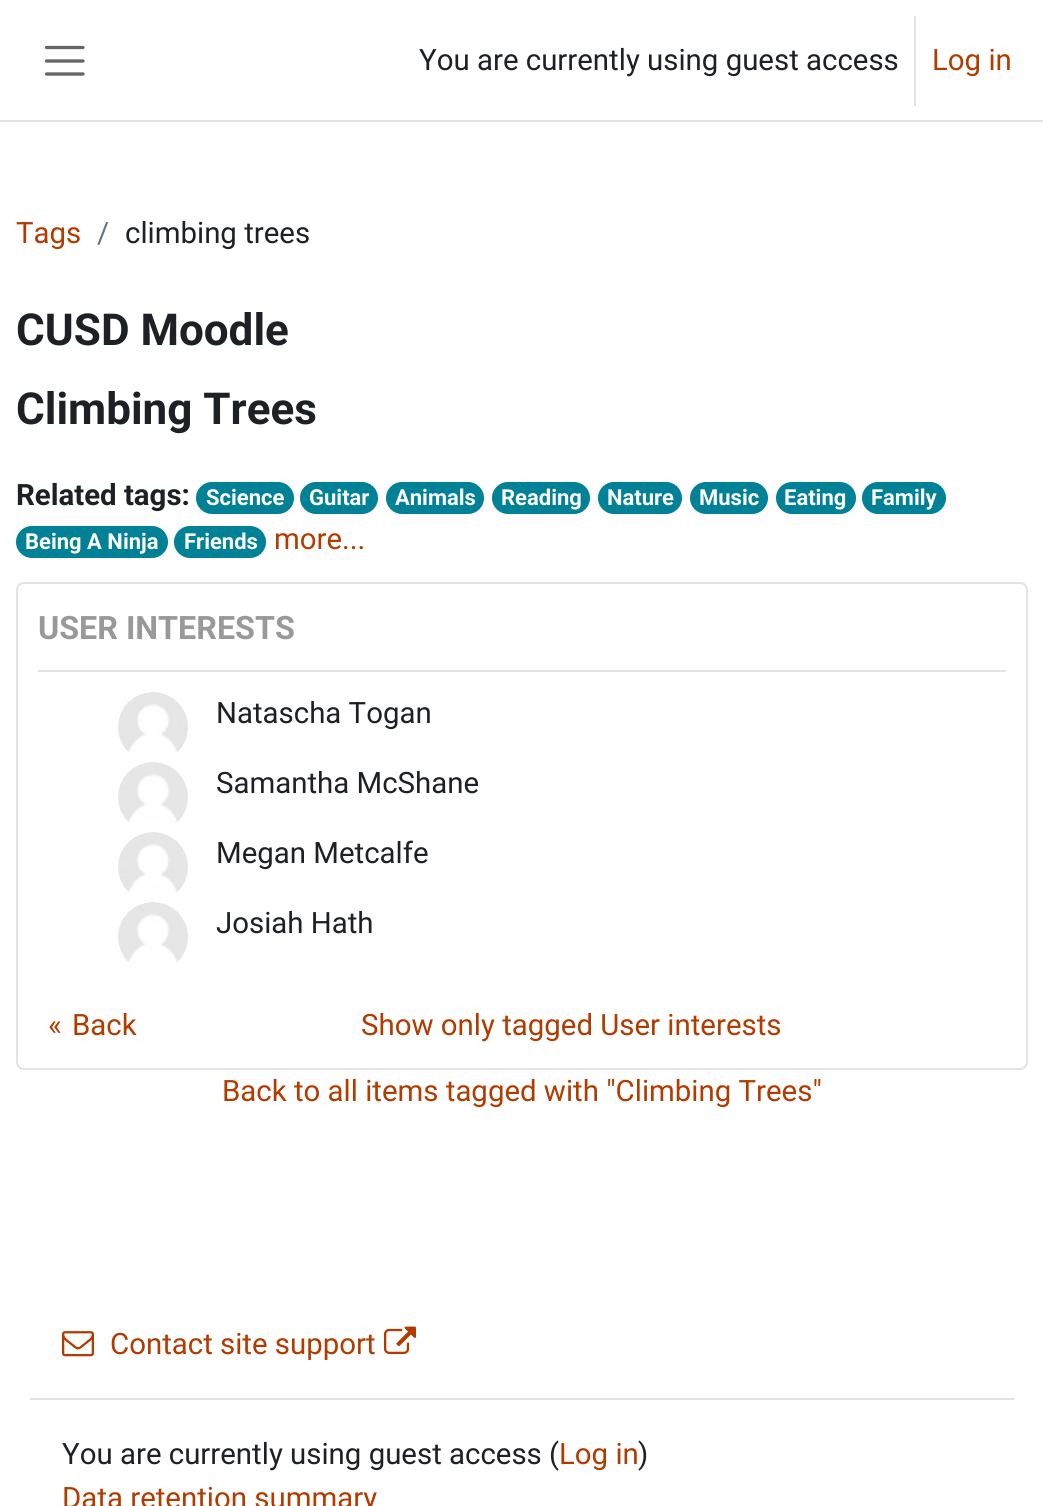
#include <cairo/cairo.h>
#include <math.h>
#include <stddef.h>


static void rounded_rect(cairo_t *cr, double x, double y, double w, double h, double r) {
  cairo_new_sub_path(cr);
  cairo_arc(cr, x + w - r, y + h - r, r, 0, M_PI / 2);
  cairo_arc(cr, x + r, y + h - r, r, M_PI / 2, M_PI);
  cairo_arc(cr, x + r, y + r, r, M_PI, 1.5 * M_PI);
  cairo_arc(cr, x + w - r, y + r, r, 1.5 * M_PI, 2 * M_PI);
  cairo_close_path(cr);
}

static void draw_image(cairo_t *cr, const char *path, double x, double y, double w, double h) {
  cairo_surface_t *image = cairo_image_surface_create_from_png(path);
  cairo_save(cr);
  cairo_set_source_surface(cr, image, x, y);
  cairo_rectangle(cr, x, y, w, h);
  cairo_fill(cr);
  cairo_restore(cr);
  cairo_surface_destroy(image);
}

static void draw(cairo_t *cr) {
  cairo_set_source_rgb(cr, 1, 1, 1);
  cairo_paint(cr);
  cairo_set_source_rgb(cr, 222 / 255.0, 226 / 255.0, 230 / 255.0);
  cairo_rectangle(cr, 0, 120, 1043, 2);
  cairo_fill(cr);
  cairo_new_path(cr);
  cairo_move_to(cr, 46.5, 47.5);
  cairo_line_to(cr, 83, 47.5);
  cairo_move_to(cr, 46.5, 61);
  cairo_line_to(cr, 83, 61);
  cairo_move_to(cr, 46.5, 74);
  cairo_line_to(cr, 83, 74);
  cairo_set_source_rgb(cr, 102 / 255.0, 102 / 255.0, 102 / 255.0);
  cairo_set_line_width(cr, 3.3);
  cairo_set_line_cap(cr, CAIRO_LINE_CAP_ROUND);
  cairo_stroke(cr);
  cairo_set_source_rgb(cr, 222 / 255.0, 226 / 255.0, 230 / 255.0);
  cairo_rectangle(cr, 914, 16, 2, 90);
  cairo_fill(cr);
  cairo_set_source_rgb(cr, 0, 129 / 255.0, 150 / 255.0);
  rounded_rect(cr, 196, 482, 98, 32, 16);
  cairo_fill(cr);
  rounded_rect(cr, 300, 482, 78, 32, 16);
  cairo_fill(cr);
  rounded_rect(cr, 386, 482, 98, 32, 16);
  cairo_fill(cr);
  rounded_rect(cr, 492, 482, 98, 32, 16);
  cairo_fill(cr);
  rounded_rect(cr, 598, 482, 84, 32, 16);
  cairo_fill(cr);
  rounded_rect(cr, 690, 482, 78, 32, 16);
  cairo_fill(cr);
  rounded_rect(cr, 776, 482, 80, 32, 16);
  cairo_fill(cr);
  rounded_rect(cr, 862, 482, 84, 32, 16);
  cairo_fill(cr);
  rounded_rect(cr, 16, 526, 152, 32, 16);
  cairo_fill(cr);
  rounded_rect(cr, 174, 526, 92, 32, 16);
  cairo_fill(cr);
  rounded_rect(cr, 17, 583, 1010, 486, 7);
  cairo_set_source_rgb(cr, 227 / 255.0, 227 / 255.0, 227 / 255.0);
  cairo_set_line_width(cr, 2);
  cairo_set_line_cap(cr, CAIRO_LINE_CAP_BUTT);
  cairo_stroke(cr);
  cairo_rectangle(cr, 38, 670, 968, 2);
  cairo_fill(cr);
  draw_image(cr, "images/1.png", 118, 692, 70, 61);
  draw_image(cr, "images/2.png", 118, 762, 70, 61);
  draw_image(cr, "images/1.png", 118, 832, 70, 61);
  draw_image(cr, "images/1.png", 118, 902, 70, 61);
  cairo_set_source_rgb(cr, 222 / 255.0, 226 / 255.0, 230 / 255.0);
  cairo_rectangle(cr, 30, 1398, 984, 2);
  cairo_fill(cr);
  draw_image(cr, "images/3.png", 62, 1331, 32, 26);
  draw_image(cr, "images/4.png", 384, 1326, 32, 28);
  cairo_select_font_face(cr, "Roboto", CAIRO_FONT_SLANT_NORMAL, CAIRO_FONT_WEIGHT_NORMAL);
  cairo_set_font_size(cr, 29.4);
  cairo_set_source_rgb(cr, 29 / 255.0, 33 / 255.0, 37 / 255.0);
  cairo_move_to(cr, 419, 70);
  cairo_show_text(cr, "You are currently using guest access");
  cairo_set_source_rgb(cr, 178 / 255.0, 59 / 255.0, 0);
  cairo_move_to(cr, 932, 70);
  cairo_show_text(cr, "Log in");
  cairo_move_to(cr, 16, 243);
  cairo_show_text(cr, "Tags");
  cairo_set_source_rgb(cr, 106 / 255.0, 115 / 255.0, 123 / 255.0);
  cairo_move_to(cr, 97, 243);
  cairo_show_text(cr, "/");
  cairo_set_source_rgb(cr, 29 / 255.0, 33 / 255.0, 37 / 255.0);
  cairo_move_to(cr, 125, 243);
  cairo_show_text(cr, "climbing trees");
  cairo_select_font_face(cr, "Roboto", CAIRO_FONT_SLANT_NORMAL, CAIRO_FONT_WEIGHT_BOLD);
  cairo_set_font_size(cr, 44);
  cairo_move_to(cr, 16, 345);
  cairo_show_text(cr, "CUSD Moodle");
  cairo_move_to(cr, 16, 424);
  cairo_show_text(cr, "Climbing Trees");
  cairo_set_font_size(cr, 29.4);
  cairo_move_to(cr, 16, 505);
  cairo_show_text(cr, "Related tags:");
  cairo_set_font_size(cr, 22);
  cairo_set_source_rgb(cr, 1, 1, 1);
  cairo_move_to(cr, 206, 505);
  cairo_show_text(cr, "Science");
  cairo_move_to(cr, 309, 505);
  cairo_show_text(cr, "Guitar");
  cairo_move_to(cr, 395, 505);
  cairo_show_text(cr, "Animals");
  cairo_move_to(cr, 501, 505);
  cairo_show_text(cr, "Reading");
  cairo_move_to(cr, 607, 505);
  cairo_show_text(cr, "Nature");
  cairo_move_to(cr, 699, 505);
  cairo_show_text(cr, "Music");
  cairo_move_to(cr, 784, 505);
  cairo_show_text(cr, "Eating");
  cairo_move_to(cr, 871, 505);
  cairo_show_text(cr, "Family");
  cairo_move_to(cr, 25, 549);
  cairo_show_text(cr, "Being A Ninja");
  cairo_move_to(cr, 184, 549);
  cairo_show_text(cr, "Friends");
  cairo_select_font_face(cr, "Roboto", CAIRO_FONT_SLANT_NORMAL, CAIRO_FONT_WEIGHT_NORMAL);
  cairo_set_font_size(cr, 29.4);
  cairo_set_source_rgb(cr, 178 / 255.0, 59 / 255.0, 0);
  cairo_move_to(cr, 274, 549);
  cairo_show_text(cr, "more...");
  cairo_select_font_face(cr, "Roboto", CAIRO_FONT_SLANT_NORMAL, CAIRO_FONT_WEIGHT_BOLD);
  cairo_set_font_size(cr, 32.25);
  cairo_set_source_rgb(cr, 153 / 255.0, 153 / 255.0, 153 / 255.0);
  cairo_move_to(cr, 38, 639);
  cairo_show_text(cr, "USER INTERESTS");
  cairo_select_font_face(cr, "Roboto", CAIRO_FONT_SLANT_NORMAL, CAIRO_FONT_WEIGHT_NORMAL);
  cairo_set_font_size(cr, 29.4);
  cairo_set_source_rgb(cr, 29 / 255.0, 33 / 255.0, 37 / 255.0);
  cairo_move_to(cr, 216, 723);
  cairo_show_text(cr, "Natascha Togan");
  cairo_move_to(cr, 216, 793);
  cairo_show_text(cr, "Samantha McShane");
  cairo_move_to(cr, 216, 863);
  cairo_show_text(cr, "Megan Metcalfe");
  cairo_move_to(cr, 216, 933);
  cairo_show_text(cr, "Josiah Hath");
  cairo_set_source_rgb(cr, 178 / 255.0, 59 / 255.0, 0);
  cairo_move_to(cr, 48, 1035);
  cairo_show_text(cr, "«");
  cairo_move_to(cr, 72, 1035);
  cairo_show_text(cr, "Back");
  cairo_move_to(cr, 361, 1035);
  cairo_show_text(cr, "Show only tagged User interests");
  cairo_move_to(cr, 222, 1101);
  cairo_show_text(cr, "Back to all items tagged with \"Climbing Trees\"");
  cairo_move_to(cr, 110, 1354);
  cairo_show_text(cr, "Contact site support");
  cairo_set_source_rgb(cr, 29 / 255.0, 33 / 255.0, 37 / 255.0);
  cairo_move_to(cr, 62, 1464);
  cairo_show_text(cr, "You are currently using guest access (");
  cairo_set_source_rgb(cr, 178 / 255.0, 59 / 255.0, 0);
  cairo_move_to(cr, 559, 1464);
  cairo_show_text(cr, "Log in");
  cairo_set_source_rgb(cr, 29 / 255.0, 33 / 255.0, 37 / 255.0);
  cairo_move_to(cr, 638, 1464);
  cairo_show_text(cr, ")");
  cairo_set_source_rgb(cr, 178 / 255.0, 59 / 255.0, 0);
  cairo_move_to(cr, 62, 1508);
  cairo_show_text(cr, "Data retention summary");
}

int main(void) {
  cairo_surface_t *surface = cairo_image_surface_create(CAIRO_FORMAT_RGB24, 1043, 1506);
  cairo_t *cr = cairo_create(surface);
  cairo_font_options_t *options = cairo_font_options_create();
  cairo_font_options_set_hint_metrics(options, CAIRO_HINT_METRICS_OFF);
  cairo_font_options_set_hint_style(options, CAIRO_HINT_STYLE_NONE);
  cairo_set_font_options(cr, options);
  cairo_set_miter_limit(cr, 4);
  draw(cr);
  cairo_surface_write_to_png(surface, "out.png");
  cairo_font_options_destroy(options);
  cairo_destroy(cr);
  cairo_surface_destroy(surface);
  return 0;
}
